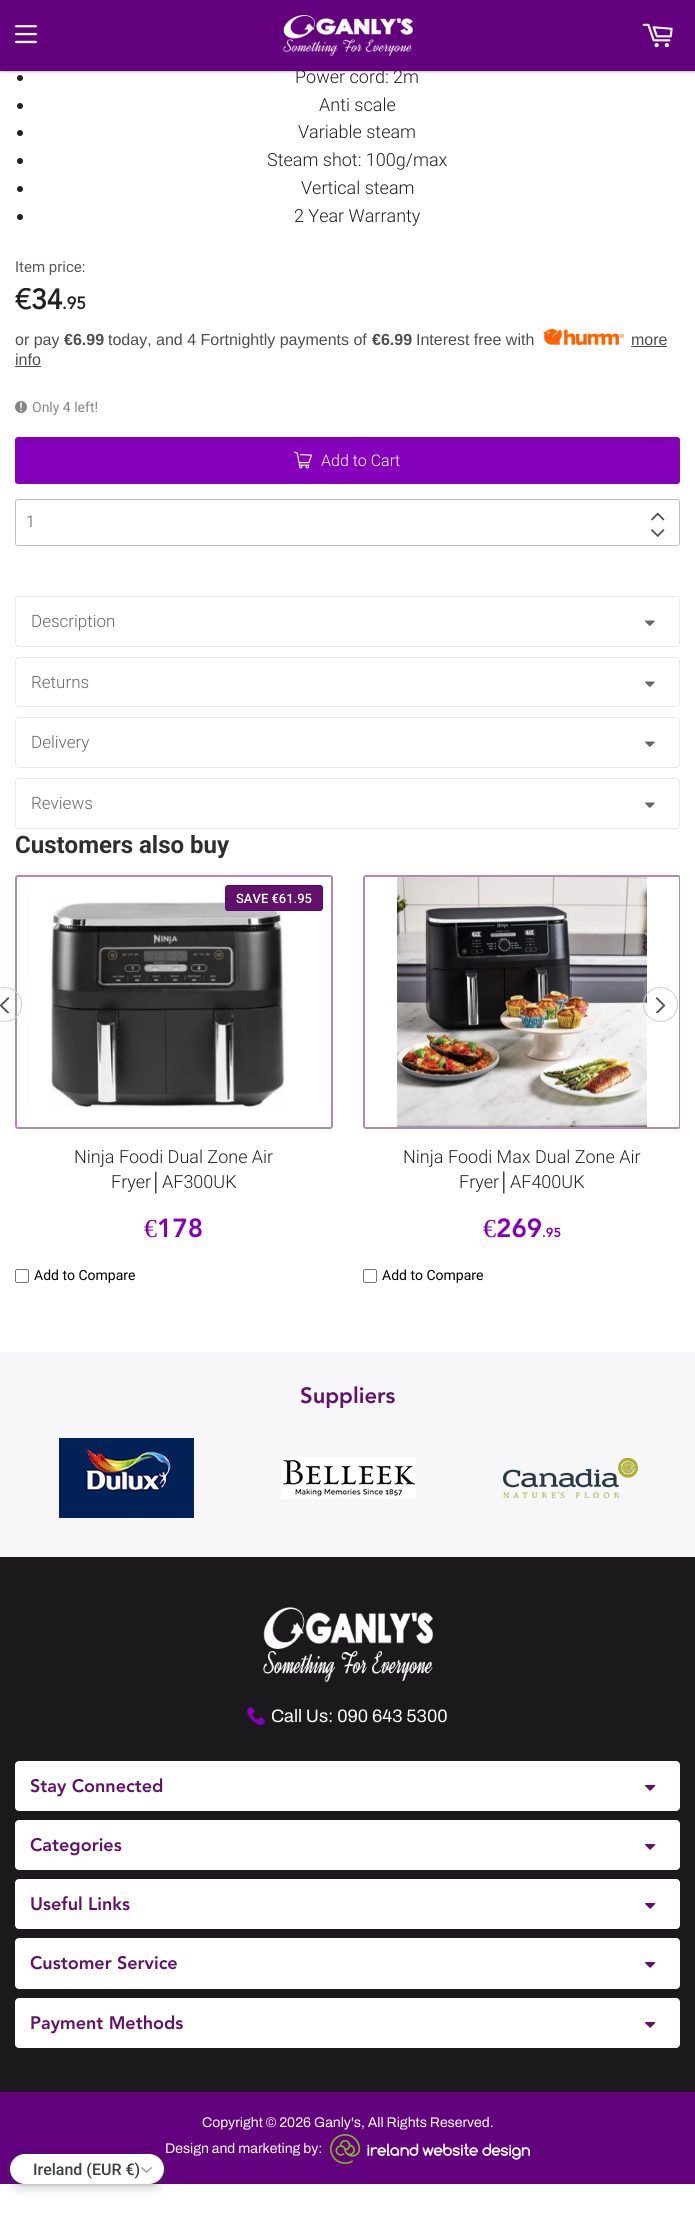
#include <cairo/cairo.h>
#include <math.h>
#include <stddef.h>


static void rounded_rect(cairo_t *cr, double x, double y, double w, double h, double r) {
  cairo_new_sub_path(cr);
  cairo_arc(cr, x + w - r, y + h - r, r, 0, M_PI / 2);
  cairo_arc(cr, x + r, y + h - r, r, M_PI / 2, M_PI);
  cairo_arc(cr, x + r, y + r, r, M_PI, 1.5 * M_PI);
  cairo_arc(cr, x + w - r, y + r, r, 1.5 * M_PI, 2 * M_PI);
  cairo_close_path(cr);
}

static void draw_shadow(cairo_t *cr, double x, double y, double w, double h, double r, double blur, double alpha) {
  cairo_push_group_with_content(cr, CAIRO_CONTENT_ALPHA);
  cairo_set_operator(cr, CAIRO_OPERATOR_SOURCE);
  for (int i = 15; i >= -15 && fmin(w, h) + blur * i / 3 > 0; i -= 2) {
    double e = blur * i / 6;
    cairo_set_source_rgba(cr, 0, 0, 0, alpha * erfc((i - 1) / 8.5) / 2);
    rounded_rect(cr, x - e, y - e, w + 2 * e, h + 2 * e, fmax(0, fmin(r + e + blur * .6, fmin(w, h) / 2 + e)));
    cairo_fill(cr);
  }
  cairo_pattern_t *soft = cairo_pop_group(cr);
  cairo_mask(cr, soft);
  cairo_pattern_destroy(soft);
}

static void draw_image(cairo_t *cr, const char *path, double x, double y, double w, double h) {
  cairo_surface_t *image = cairo_image_surface_create_from_png(path);
  cairo_save(cr);
  cairo_set_source_surface(cr, image, x, y);
  cairo_rectangle(cr, x, y, w, h);
  cairo_fill(cr);
  cairo_restore(cr);
  cairo_surface_destroy(image);
}

static void draw(cairo_t *cr) {
  cairo_set_source_rgb(cr, 1, 1, 1);
  cairo_paint(cr);
  cairo_set_source_rgb(cr, 32 / 255.0, 32 / 255.0, 32 / 255.0);
  cairo_arc(cr, 20, 78, 3, 0, 2 * M_PI);
  cairo_fill(cr);
  cairo_set_source_rgb(cr, 0, 0, 0);
  draw_shadow(cr, 1, 1, 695, 71, 0, 1, 0.25);
  cairo_set_source_rgb(cr, 32 / 255.0, 32 / 255.0, 32 / 255.0);
  cairo_arc(cr, 20, 106, 3, 0, 2 * M_PI);
  cairo_fill(cr);
  cairo_arc(cr, 20, 133, 3, 0, 2 * M_PI);
  cairo_fill(cr);
  cairo_arc(cr, 20, 161, 3, 0, 2 * M_PI);
  cairo_fill(cr);
  cairo_arc(cr, 20, 189, 3, 0, 2 * M_PI);
  cairo_fill(cr);
  cairo_arc(cr, 20, 217, 3, 0, 2 * M_PI);
  cairo_fill(cr);
  draw_image(cr, "images/4.png", 543, 329, 81, 16);
  cairo_set_source_rgb(cr, 77 / 255.0, 77 / 255.0, 77 / 255.0);
  cairo_rectangle(cr, 631, 346, 36, 1);
  cairo_fill(cr);
  cairo_rectangle(cr, 15, 366, 26, 1);
  cairo_fill(cr);
  draw_image(cr, "images/5.png", 15, 401, 12, 12);
  cairo_set_source_rgb(cr, 133 / 255.0, 0, 187 / 255.0);
  rounded_rect(cr, 15.5, 437.5, 664, 46, 2.5);
  cairo_fill_preserve(cr);
  cairo_set_line_width(cr, 1);
  cairo_stroke(cr);
  draw_image(cr, "images/6.png", 294, 451, 18, 18);
  rounded_rect(cr, 15.5, 499.5, 664, 46, 2.5);
  cairo_set_source_rgb(cr, 189 / 255.0, 189 / 255.0, 189 / 255.0);
  cairo_stroke(cr);
  draw_image(cr, "images/7.png", 651, 512, 14, 9);
  draw_image(cr, "images/8.png", 651, 529, 14, 8);
  rounded_rect(cr, 15.5, 596.5, 664, 50, 3.5);
  cairo_set_source_rgb(cr, 233 / 255.0, 233 / 255.0, 233 / 255.0);
  cairo_stroke(cr);
  draw_image(cr, "images/9.png", 645, 620, 10, 6);
  rounded_rect(cr, 15.5, 657.5, 664, 49, 3.5);
  cairo_stroke(cr);
  draw_image(cr, "images/9.png", 645, 681, 10, 6);
  rounded_rect(cr, 15.5, 717.5, 664, 50, 3.5);
  cairo_stroke(cr);
  draw_image(cr, "images/9.png", 645, 741, 10, 6);
  rounded_rect(cr, 15.5, 778.5, 664, 50, 3.5);
  cairo_stroke(cr);
  draw_image(cr, "images/9.png", 645, 802, 10, 6);
  rounded_rect(cr, 16, 876, 316, 252, 2);
  cairo_set_source_rgb(cr, 176 / 255.0, 136 / 255.0, 181 / 255.0);
  cairo_set_line_width(cr, 2);
  cairo_stroke(cr);
  cairo_arc(cr, 4.5, 1004.5, 17, 0, 2 * M_PI);
  cairo_set_source_rgb(cr, 207 / 255.0, 207 / 255.0, 207 / 255.0);
  cairo_set_line_width(cr, 1);
  cairo_stroke(cr);
  draw_image(cr, "images/10.png", 0, 997, 9, 16);
  draw_image(cr, "images/11.png", 49, 901, 236, 207);
  cairo_set_source_rgb(cr, 97 / 255.0, 17 / 255.0, 106 / 255.0);
  rounded_rect(cr, 225.5, 885.5, 97, 25, 2.5);
  cairo_fill_preserve(cr);
  cairo_set_source_rgb(cr, 98 / 255.0, 0, 126 / 255.0);
  cairo_stroke(cr);
  rounded_rect(cr, 15.5, 1269.5, 13, 13, 1.5);
  cairo_set_source_rgb(cr, 118 / 255.0, 118 / 255.0, 118 / 255.0);
  cairo_stroke(cr);
  cairo_save(cr);
  cairo_rectangle(cr, 0, 875, 680, 417);
  cairo_clip(cr);
  rounded_rect(cr, 364, 876, 316, 252, 2);
  cairo_set_source_rgb(cr, 176 / 255.0, 136 / 255.0, 181 / 255.0);
  cairo_set_line_width(cr, 2);
  cairo_stroke(cr);
  cairo_restore(cr);
  draw_image(cr, "images/12.png", 397, 877, 250, 250);
  rounded_rect(cr, 363.5, 1269.5, 13, 13, 1.5);
  cairo_stroke(cr);
  cairo_arc(cr, 660.5, 1004.5, 17, 0, 2 * M_PI);
  cairo_set_source_rgb(cr, 207 / 255.0, 207 / 255.0, 207 / 255.0);
  cairo_stroke(cr);
  draw_image(cr, "images/13.png", 656, 997, 9, 16);
  cairo_set_source_rgb(cr, 247 / 255.0, 246 / 255.0, 248 / 255.0);
  cairo_rectangle(cr, 0, 1352, 695, 205);
  cairo_fill(cr);
  draw_image(cr, "images/14.png", 59, 1438, 135, 80);
  draw_image(cr, "images/15.png", 281, 1457, 135, 42);
  draw_image(cr, "images/16.png", 503, 1458, 135, 40);
  cairo_set_source_rgb(cr, 27 / 255.0, 25 / 255.0, 27 / 255.0);
  cairo_rectangle(cr, 0, 1557, 695, 535);
  cairo_fill(cr);
  draw_image(cr, "images/17.png", 263, 1607, 170, 75);
  draw_image(cr, "images/18.png", 247, 1707, 18, 18);
  cairo_set_source_rgb(cr, 1, 1, 1);
  rounded_rect(cr, 15, 1761, 665, 50, 4);
  cairo_fill(cr);
  draw_image(cr, "images/19.png", 645, 1785, 11, 6);
  rounded_rect(cr, 15, 1820, 665, 50, 4);
  cairo_fill(cr);
  draw_image(cr, "images/19.png", 645, 1844, 11, 6);
  rounded_rect(cr, 15, 1879, 665, 50, 4);
  cairo_fill(cr);
  draw_image(cr, "images/19.png", 645, 1903, 11, 6);
  rounded_rect(cr, 15, 1938, 665, 51, 4);
  cairo_fill(cr);
  draw_image(cr, "images/19.png", 645, 1962, 11, 6);
  rounded_rect(cr, 15, 1998, 665, 50, 4);
  cairo_fill(cr);
  draw_image(cr, "images/19.png", 645, 2022, 11, 6);
  cairo_set_source_rgb(cr, 98 / 255.0, 0, 126 / 255.0);
  cairo_rectangle(cr, 0, 2092, 695, 92);
  cairo_fill(cr);
  draw_image(cr, "images/20.png", 330, 2134, 200, 30);
  cairo_set_source_rgb(cr, 60 / 255.0, 64 / 255.0, 67 / 255.0);
  draw_shadow(cr, 7, 2155, 160, 36, 18, 4, 0.15);
  draw_shadow(cr, 10, 2155, 154, 30, 15, 1.5, 0.3);
  cairo_set_source_rgb(cr, 1, 1, 1);
  rounded_rect(cr, 10, 2154, 154, 30, 15);
  cairo_fill(cr);
  draw_image(cr, "images/21.png", 141, 2167, 11, 6);
  cairo_select_font_face(cr, "Roboto Light", CAIRO_FONT_SLANT_NORMAL, CAIRO_FONT_WEIGHT_NORMAL);
  cairo_set_font_size(cr, 18);
  cairo_set_source_rgb(cr, 32 / 255.0, 32 / 255.0, 32 / 255.0);
  cairo_move_to(cr, 295, 83);
  cairo_show_text(cr, "Power cord: 2m");
  cairo_set_source_rgb(cr, 98 / 255.0, 0, 126 / 255.0);
  cairo_rectangle(cr, 0, 0, 695, 71);
  cairo_fill(cr);
  draw_image(cr, "images/3.png", 642, 23, 31, 25);
  draw_image(cr, "images/1.png", 15, 25, 22, 19);
  draw_image(cr, "images/2.png", 282, 15, 131, 41);
  cairo_set_source_rgb(cr, 32 / 255.0, 32 / 255.0, 32 / 255.0);
  cairo_move_to(cr, 319, 111);
  cairo_show_text(cr, "Anti scale");
  cairo_move_to(cr, 298, 138);
  cairo_show_text(cr, "Variable steam");
  cairo_move_to(cr, 267, 166);
  cairo_show_text(cr, "Steam shot: 100g/max");
  cairo_move_to(cr, 301, 194);
  cairo_show_text(cr, "Vertical steam");
  cairo_move_to(cr, 294, 222);
  cairo_show_text(cr, "2 Year Warranty");
  cairo_select_font_face(cr, "Roboto", CAIRO_FONT_SLANT_NORMAL, CAIRO_FONT_WEIGHT_NORMAL);
  cairo_set_font_size(cr, 15);
  cairo_set_source_rgb(cr, 88 / 255.0, 88 / 255.0, 90 / 255.0);
  cairo_move_to(cr, 15, 272);
  cairo_show_text(cr, "Item price:");
  cairo_select_font_face(cr, "Avenir", CAIRO_FONT_SLANT_NORMAL, CAIRO_FONT_WEIGHT_BOLD);
  cairo_set_font_size(cr, 28);
  cairo_set_source_rgb(cr, 32 / 255.0, 32 / 255.0, 32 / 255.0);
  cairo_move_to(cr, 15, 309);
  cairo_show_text(cr, "€34");
  cairo_set_font_size(cr, 17);
  cairo_move_to(cr, 62, 309);
  cairo_show_text(cr, ".95");
  cairo_select_font_face(cr, "Liberation Sans", CAIRO_FONT_SLANT_NORMAL, CAIRO_FONT_WEIGHT_NORMAL);
  cairo_set_font_size(cr, 16);
  cairo_set_source_rgb(cr, 77 / 255.0, 77 / 255.0, 77 / 255.0);
  cairo_move_to(cr, 15, 345);
  cairo_show_text(cr, "or pay");
  cairo_select_font_face(cr, "Liberation Sans", CAIRO_FONT_SLANT_NORMAL, CAIRO_FONT_WEIGHT_BOLD);
  cairo_move_to(cr, 64, 345);
  cairo_show_text(cr, "€6.99");
  cairo_select_font_face(cr, "Liberation Sans", CAIRO_FONT_SLANT_NORMAL, CAIRO_FONT_WEIGHT_NORMAL);
  cairo_move_to(cr, 108, 345);
  cairo_show_text(cr, "today, and 4 Fortnightly payments of");
  cairo_select_font_face(cr, "Liberation Sans", CAIRO_FONT_SLANT_NORMAL, CAIRO_FONT_WEIGHT_BOLD);
  cairo_move_to(cr, 372, 345);
  cairo_show_text(cr, "€6.99");
  cairo_select_font_face(cr, "Liberation Sans", CAIRO_FONT_SLANT_NORMAL, CAIRO_FONT_WEIGHT_NORMAL);
  cairo_move_to(cr, 416, 345);
  cairo_show_text(cr, "Interest free with");
  cairo_move_to(cr, 631, 345);
  cairo_show_text(cr, "more");
  cairo_move_to(cr, 15, 365);
  cairo_show_text(cr, "info");
  cairo_select_font_face(cr, "Roboto", CAIRO_FONT_SLANT_NORMAL, CAIRO_FONT_WEIGHT_NORMAL);
  cairo_set_font_size(cr, 14);
  cairo_set_source_rgb(cr, 133 / 255.0, 133 / 255.0, 133 / 255.0);
  cairo_move_to(cr, 32, 412);
  cairo_show_text(cr, "Only 4 left!");
  cairo_select_font_face(cr, "Roboto Light", CAIRO_FONT_SLANT_NORMAL, CAIRO_FONT_WEIGHT_NORMAL);
  cairo_set_font_size(cr, 16);
  cairo_set_source_rgb(cr, 1, 1, 1);
  cairo_move_to(cr, 321, 466);
  cairo_show_text(cr, "Add to Cart");
  cairo_set_source_rgb(cr, 77 / 255.0, 77 / 255.0, 77 / 255.0);
  cairo_move_to(cr, 26, 527);
  cairo_show_text(cr, "1");
  cairo_set_font_size(cr, 17);
  cairo_set_source_rgb(cr, 102 / 255.0, 102 / 255.0, 102 / 255.0);
  cairo_move_to(cr, 31, 627);
  cairo_show_text(cr, "Description");
  cairo_move_to(cr, 31, 688);
  cairo_show_text(cr, "Returns");
  cairo_move_to(cr, 31, 748);
  cairo_show_text(cr, "Delivery");
  cairo_move_to(cr, 31, 809);
  cairo_show_text(cr, "Reviews");
  cairo_select_font_face(cr, "Roboto", CAIRO_FONT_SLANT_NORMAL, CAIRO_FONT_WEIGHT_BOLD);
  cairo_set_font_size(cr, 24);
  cairo_set_source_rgb(cr, 47 / 255.0, 47 / 255.0, 47 / 255.0);
  cairo_move_to(cr, 15, 853);
  cairo_show_text(cr, "Customers also buy");
  cairo_select_font_face(cr, "Roboto Medium", CAIRO_FONT_SLANT_NORMAL, CAIRO_FONT_WEIGHT_NORMAL);
  cairo_set_font_size(cr, 13);
  cairo_set_source_rgb(cr, 1, 1, 1);
  cairo_move_to(cr, 236, 903);
  cairo_show_text(cr, "SAVE €61.95");
  cairo_select_font_face(cr, "Roboto Light", CAIRO_FONT_SLANT_NORMAL, CAIRO_FONT_WEIGHT_NORMAL);
  cairo_set_font_size(cr, 18);
  cairo_set_source_rgb(cr, 32 / 255.0, 32 / 255.0, 32 / 255.0);
  cairo_move_to(cr, 74, 1163);
  cairo_show_text(cr, "Ninja Foodi Dual Zone Air");
  cairo_move_to(cr, 111, 1188);
  cairo_show_text(cr, "Fryer");
  cairo_select_font_face(cr, "Liberation Sans", CAIRO_FONT_SLANT_NORMAL, CAIRO_FONT_WEIGHT_NORMAL);
  cairo_move_to(cr, 151, 1188);
  cairo_show_text(cr, "│");
  cairo_select_font_face(cr, "Roboto Light", CAIRO_FONT_SLANT_NORMAL, CAIRO_FONT_WEIGHT_NORMAL);
  cairo_move_to(cr, 162, 1188);
  cairo_show_text(cr, "AF300UK");
  cairo_select_font_face(cr, "Liberation Serif", CAIRO_FONT_SLANT_NORMAL, CAIRO_FONT_WEIGHT_NORMAL);
  cairo_set_font_size(cr, 26);
  cairo_set_source_rgb(cr, 133 / 255.0, 0, 187 / 255.0);
  cairo_move_to(cr, 144, 1237);
  cairo_show_text(cr, "€");
  cairo_select_font_face(cr, "Avenir Black", CAIRO_FONT_SLANT_NORMAL, CAIRO_FONT_WEIGHT_NORMAL);
  cairo_move_to(cr, 157, 1237);
  cairo_show_text(cr, "178");
  cairo_select_font_face(cr, "Roboto", CAIRO_FONT_SLANT_NORMAL, CAIRO_FONT_WEIGHT_NORMAL);
  cairo_set_font_size(cr, 14);
  cairo_set_source_rgb(cr, 0, 0, 0);
  cairo_move_to(cr, 34, 1280);
  cairo_show_text(cr, "Add to Compare");
  cairo_select_font_face(cr, "Roboto Light", CAIRO_FONT_SLANT_NORMAL, CAIRO_FONT_WEIGHT_NORMAL);
  cairo_set_font_size(cr, 18);
  cairo_set_source_rgb(cr, 32 / 255.0, 32 / 255.0, 32 / 255.0);
  cairo_move_to(cr, 403, 1163);
  cairo_show_text(cr, "Ninja Foodi Max Dual Zone Air");
  cairo_move_to(cr, 459, 1188);
  cairo_show_text(cr, "Fryer");
  cairo_select_font_face(cr, "Liberation Sans", CAIRO_FONT_SLANT_NORMAL, CAIRO_FONT_WEIGHT_NORMAL);
  cairo_move_to(cr, 499, 1188);
  cairo_show_text(cr, "│");
  cairo_select_font_face(cr, "Roboto Light", CAIRO_FONT_SLANT_NORMAL, CAIRO_FONT_WEIGHT_NORMAL);
  cairo_move_to(cr, 510, 1188);
  cairo_show_text(cr, "AF400UK");
  cairo_select_font_face(cr, "Liberation Serif", CAIRO_FONT_SLANT_NORMAL, CAIRO_FONT_WEIGHT_NORMAL);
  cairo_set_font_size(cr, 26);
  cairo_set_source_rgb(cr, 133 / 255.0, 0, 187 / 255.0);
  cairo_move_to(cr, 483, 1237);
  cairo_show_text(cr, "€");
  cairo_select_font_face(cr, "Avenir Black", CAIRO_FONT_SLANT_NORMAL, CAIRO_FONT_WEIGHT_NORMAL);
  cairo_move_to(cr, 496, 1237);
  cairo_show_text(cr, "269");
  cairo_set_font_size(cr, 13);
  cairo_move_to(cr, 542, 1237);
  cairo_show_text(cr, ".95");
  cairo_select_font_face(cr, "Roboto", CAIRO_FONT_SLANT_NORMAL, CAIRO_FONT_WEIGHT_NORMAL);
  cairo_set_font_size(cr, 14);
  cairo_set_source_rgb(cr, 0, 0, 0);
  cairo_move_to(cr, 382, 1280);
  cairo_show_text(cr, "Add to Compare");
  cairo_select_font_face(cr, "Avenir Black", CAIRO_FONT_SLANT_NORMAL, CAIRO_FONT_WEIGHT_NORMAL);
  cairo_set_font_size(cr, 22);
  cairo_set_source_rgb(cr, 97 / 255.0, 17 / 255.0, 106 / 255.0);
  cairo_move_to(cr, 300, 1403);
  cairo_show_text(cr, "Suppliers");
  cairo_select_font_face(cr, "Archivo", CAIRO_FONT_SLANT_NORMAL, CAIRO_FONT_WEIGHT_NORMAL);
  cairo_set_font_size(cr, 18);
  cairo_set_source_rgb(cr, 1, 1, 1);
  cairo_move_to(cr, 271, 1722);
  cairo_show_text(cr, "Call Us: 090 643 5300");
  cairo_select_font_face(cr, "Avenir Black", CAIRO_FONT_SLANT_NORMAL, CAIRO_FONT_WEIGHT_NORMAL);
  cairo_set_source_rgb(cr, 97 / 255.0, 17 / 255.0, 106 / 255.0);
  cairo_move_to(cr, 30, 1792);
  cairo_show_text(cr, "Stay Connected");
  cairo_move_to(cr, 30, 1851);
  cairo_show_text(cr, "Categories");
  cairo_move_to(cr, 30, 1910);
  cairo_show_text(cr, "Useful Links");
  cairo_move_to(cr, 30, 1969);
  cairo_show_text(cr, "Customer Service");
  cairo_move_to(cr, 30, 2029);
  cairo_show_text(cr, "Payment Methods");
  cairo_select_font_face(cr, "Archivo", CAIRO_FONT_SLANT_NORMAL, CAIRO_FONT_WEIGHT_NORMAL);
  cairo_set_font_size(cr, 14);
  cairo_set_source_rgb(cr, 1, 1, 1);
  cairo_move_to(cr, 202, 2127);
  cairo_show_text(cr, "Copyright © 2026 Ganly's, All Rights Reserved.");
  cairo_move_to(cr, 165, 2153);
  cairo_show_text(cr, "Design and marketing by:");
  cairo_select_font_face(cr, "Roboto Medium", CAIRO_FONT_SLANT_NORMAL, CAIRO_FONT_WEIGHT_NORMAL);
  cairo_set_font_size(cr, 16);
  cairo_set_source_rgb(cr, 60 / 255.0, 64 / 255.0, 67 / 255.0);
  cairo_move_to(cr, 33, 2175);
  cairo_show_text(cr, "Ireland (EUR €)");
}

int main(void) {
  cairo_surface_t *surface = cairo_image_surface_create(CAIRO_FORMAT_RGB24, 695, 2214);
  cairo_t *cr = cairo_create(surface);
  cairo_font_options_t *options = cairo_font_options_create();
  cairo_font_options_set_hint_metrics(options, CAIRO_HINT_METRICS_OFF);
  cairo_font_options_set_hint_style(options, CAIRO_HINT_STYLE_NONE);
  cairo_set_font_options(cr, options);
  cairo_set_miter_limit(cr, 4);
  draw(cr);
  cairo_surface_write_to_png(surface, "out.png");
  cairo_font_options_destroy(options);
  cairo_destroy(cr);
  cairo_surface_destroy(surface);
  return 0;
}
